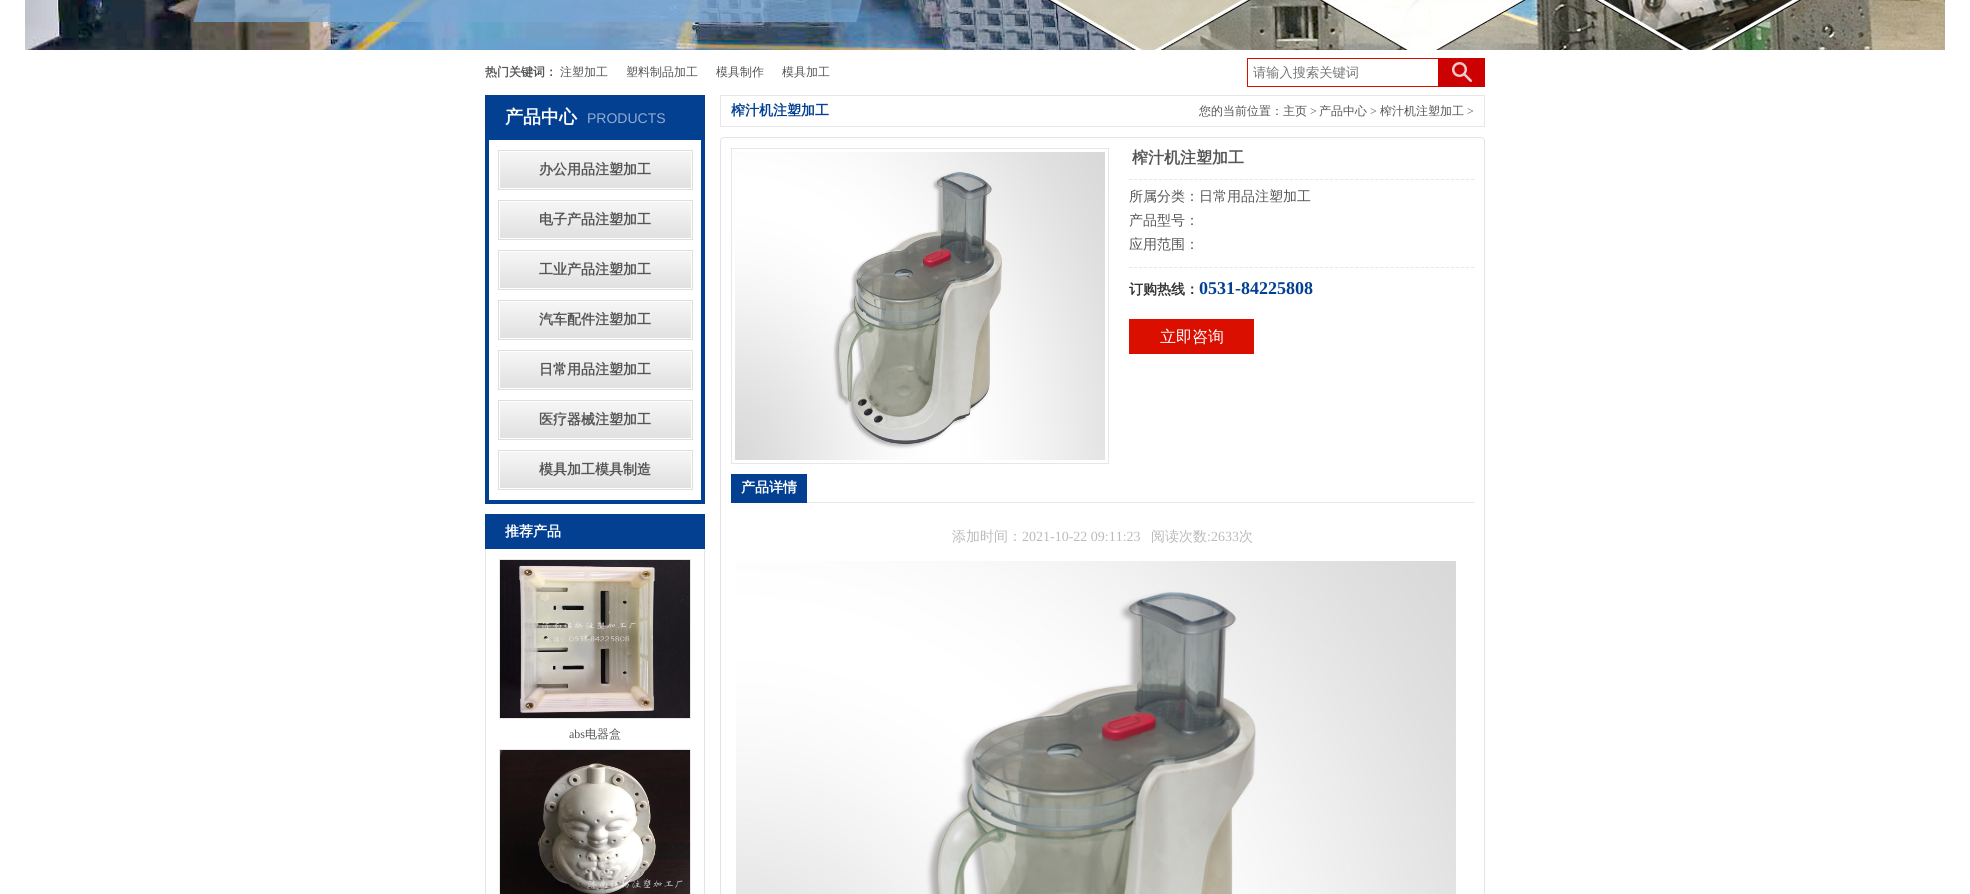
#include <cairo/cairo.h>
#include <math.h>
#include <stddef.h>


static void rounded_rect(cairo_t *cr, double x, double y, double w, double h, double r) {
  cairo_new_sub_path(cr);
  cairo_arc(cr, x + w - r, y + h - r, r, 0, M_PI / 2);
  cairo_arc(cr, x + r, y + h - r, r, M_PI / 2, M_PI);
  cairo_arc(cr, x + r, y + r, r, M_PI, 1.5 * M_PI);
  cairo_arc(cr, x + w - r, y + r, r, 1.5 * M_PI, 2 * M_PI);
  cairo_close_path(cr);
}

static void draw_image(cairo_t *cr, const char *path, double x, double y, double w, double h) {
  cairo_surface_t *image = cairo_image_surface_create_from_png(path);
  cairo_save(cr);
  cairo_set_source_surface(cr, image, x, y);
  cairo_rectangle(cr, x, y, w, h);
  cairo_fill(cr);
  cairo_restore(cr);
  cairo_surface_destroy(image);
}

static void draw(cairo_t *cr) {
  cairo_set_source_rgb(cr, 1, 1, 1);
  cairo_paint(cr);
  draw_image(cr, "images/1.png", 25, 0, 1920, 50);
  cairo_set_source_rgb(cr, 218 / 255.0, 15 / 255.0, 0);
  cairo_rectangle(cr, 1247, 58, 191, 1);
  cairo_fill(cr);
  cairo_rectangle(cr, 1247, 86, 191, 1);
  cairo_fill(cr);
  cairo_rectangle(cr, 1247, 58, 1, 29);
  cairo_fill(cr);
  draw_image(cr, "images/2.png", 1438, 58, 47, 29);
  cairo_set_source_rgb(cr, 3 / 255.0, 64 / 255.0, 145 / 255.0);
  cairo_rectangle(cr, 485, 95, 220, 45);
  cairo_fill(cr);
  cairo_rectangle(cr, 701, 140, 4, 364);
  cairo_fill(cr);
  cairo_rectangle(cr, 485, 500, 220, 4);
  cairo_fill(cr);
  cairo_rectangle(cr, 485, 140, 4, 364);
  cairo_fill(cr);
  draw_image(cr, "images/3.png", 498, 150, 195, 40);
  draw_image(cr, "images/3.png", 498, 200, 195, 40);
  draw_image(cr, "images/3.png", 498, 250, 195, 40);
  draw_image(cr, "images/3.png", 498, 300, 195, 40);
  draw_image(cr, "images/3.png", 498, 350, 195, 40);
  draw_image(cr, "images/3.png", 498, 400, 195, 40);
  draw_image(cr, "images/3.png", 498, 450, 195, 40);
  cairo_rectangle(cr, 485, 514, 220, 35);
  cairo_fill(cr);
  cairo_set_source_rgb(cr, 228 / 255.0, 228 / 255.0, 228 / 255.0);
  cairo_rectangle(cr, 704, 549, 1, 345);
  cairo_fill(cr);
  cairo_rectangle(cr, 485, 549, 1, 345);
  cairo_fill(cr);
  cairo_rectangle(cr, 499.5, 559.5, 191, 159);
  cairo_set_source_rgb(cr, 231 / 255.0, 231 / 255.0, 231 / 255.0);
  cairo_set_line_width(cr, 1);
  cairo_stroke(cr);
  draw_image(cr, "images/4.png", 500, 560, 190, 158);
  cairo_rectangle(cr, 499.5, 749.5, 191, 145);
  cairo_stroke(cr);
  draw_image(cr, "images/5.png", 500, 750, 190, 144);
  cairo_rectangle(cr, 720.5, 95.5, 764, 31);
  cairo_stroke(cr);
  rounded_rect(cr, 720.5, 137.5, 764, 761, 3.5);
  cairo_set_source_rgb(cr, 228 / 255.0, 228 / 255.0, 228 / 255.0);
  cairo_stroke(cr);
  cairo_rectangle(cr, 731.5, 148.5, 377, 315);
  cairo_set_source_rgb(cr, 231 / 255.0, 231 / 255.0, 231 / 255.0);
  cairo_stroke(cr);
  draw_image(cr, "images/6.png", 735, 152, 370, 308);
  cairo_new_path(cr);
  cairo_move_to(cr, 1129, 179.5);
  cairo_line_to(cr, 1474, 179.5);
  cairo_set_dash(cr, (double[]){3, 2.03}, 2, 0);
  cairo_stroke(cr);
  cairo_new_path(cr);
  cairo_move_to(cr, 1129, 267.5);
  cairo_line_to(cr, 1474, 267.5);
  cairo_stroke(cr);
  cairo_set_source_rgb(cr, 218 / 255.0, 15 / 255.0, 0);
  cairo_rectangle(cr, 1129, 319, 125, 35);
  cairo_fill(cr);
  cairo_set_source_rgb(cr, 231 / 255.0, 231 / 255.0, 231 / 255.0);
  cairo_rectangle(cr, 807, 502, 667, 1);
  cairo_fill(cr);
  cairo_set_source_rgb(cr, 3 / 255.0, 64 / 255.0, 145 / 255.0);
  cairo_rectangle(cr, 731, 474, 76, 29);
  cairo_fill(cr);
  draw_image(cr, "images/7.png", 736, 561, 720, 333);
  cairo_select_font_face(cr, "WenQuanYi Zen Hei", CAIRO_FONT_SLANT_NORMAL, CAIRO_FONT_WEIGHT_BOLD);
  cairo_set_font_size(cr, 12);
  cairo_set_source_rgb(cr, 85 / 255.0, 85 / 255.0, 85 / 255.0);
  cairo_move_to(cr, 485, 76);
  cairo_show_text(cr, "热门关键词：");
  cairo_select_font_face(cr, "WenQuanYi Zen Hei Medium", CAIRO_FONT_SLANT_NORMAL, CAIRO_FONT_WEIGHT_NORMAL);
  cairo_move_to(cr, 560, 76);
  cairo_show_text(cr, "注塑加工");
  cairo_move_to(cr, 626, 76);
  cairo_show_text(cr, "塑料制品加工");
  cairo_move_to(cr, 716, 76);
  cairo_show_text(cr, "模具制作");
  cairo_move_to(cr, 782, 76);
  cairo_show_text(cr, "模具加工");
  cairo_set_font_size(cr, 13.25);
  cairo_set_source_rgb(cr, 117 / 255.0, 117 / 255.0, 117 / 255.0);
  cairo_move_to(cr, 1253, 77);
  cairo_show_text(cr, "请输入搜索关键词");
  cairo_select_font_face(cr, "WenQuanYi Zen Hei", CAIRO_FONT_SLANT_NORMAL, CAIRO_FONT_WEIGHT_BOLD);
  cairo_set_font_size(cr, 18);
  cairo_set_source_rgb(cr, 1, 1, 1);
  cairo_move_to(cr, 505, 123);
  cairo_show_text(cr, "产品中心");
  cairo_select_font_face(cr, "Liberation Sans", CAIRO_FONT_SLANT_NORMAL, CAIRO_FONT_WEIGHT_NORMAL);
  cairo_set_font_size(cr, 14);
  cairo_set_source_rgb(cr, 147 / 255.0, 172 / 255.0, 207 / 255.0);
  cairo_move_to(cr, 587, 123);
  cairo_show_text(cr, "PRODUCTS");
  cairo_select_font_face(cr, "WenQuanYi Zen Hei", CAIRO_FONT_SLANT_NORMAL, CAIRO_FONT_WEIGHT_BOLD);
  cairo_set_source_rgb(cr, 85 / 255.0, 85 / 255.0, 85 / 255.0);
  cairo_move_to(cr, 539, 174);
  cairo_show_text(cr, "办公用品注塑加工");
  cairo_move_to(cr, 539, 224);
  cairo_show_text(cr, "电子产品注塑加工");
  cairo_move_to(cr, 539, 274);
  cairo_show_text(cr, "工业产品注塑加工");
  cairo_move_to(cr, 539, 324);
  cairo_show_text(cr, "汽车配件注塑加工");
  cairo_move_to(cr, 539, 374);
  cairo_show_text(cr, "日常用品注塑加工");
  cairo_move_to(cr, 539, 424);
  cairo_show_text(cr, "医疗器械注塑加工");
  cairo_move_to(cr, 539, 474);
  cairo_show_text(cr, "模具加工模具制造");
  cairo_set_source_rgb(cr, 1, 1, 1);
  cairo_move_to(cr, 505, 536);
  cairo_show_text(cr, "推荐产品");
  cairo_select_font_face(cr, "Liberation Serif", CAIRO_FONT_SLANT_NORMAL, CAIRO_FONT_WEIGHT_NORMAL);
  cairo_set_font_size(cr, 12);
  cairo_set_source_rgb(cr, 85 / 255.0, 85 / 255.0, 85 / 255.0);
  cairo_move_to(cr, 569, 738);
  cairo_show_text(cr, "abs");
  cairo_select_font_face(cr, "WenQuanYi Zen Hei Medium", CAIRO_FONT_SLANT_NORMAL, CAIRO_FONT_WEIGHT_NORMAL);
  cairo_move_to(cr, 585, 738);
  cairo_show_text(cr, "电器盒");
  cairo_select_font_face(cr, "WenQuanYi Zen Hei", CAIRO_FONT_SLANT_NORMAL, CAIRO_FONT_WEIGHT_BOLD);
  cairo_set_font_size(cr, 14);
  cairo_set_source_rgb(cr, 3 / 255.0, 64 / 255.0, 145 / 255.0);
  cairo_move_to(cr, 731, 115);
  cairo_show_text(cr, "榨汁机注塑加工");
  cairo_select_font_face(cr, "WenQuanYi Zen Hei Medium", CAIRO_FONT_SLANT_NORMAL, CAIRO_FONT_WEIGHT_NORMAL);
  cairo_set_font_size(cr, 12);
  cairo_set_source_rgb(cr, 85 / 255.0, 85 / 255.0, 85 / 255.0);
  cairo_move_to(cr, 1199, 115);
  cairo_show_text(cr, "您的当前位置：主页");
  cairo_select_font_face(cr, "Liberation Serif", CAIRO_FONT_SLANT_NORMAL, CAIRO_FONT_WEIGHT_NORMAL);
  cairo_move_to(cr, 1310, 115);
  cairo_show_text(cr, ">");
  cairo_select_font_face(cr, "WenQuanYi Zen Hei Medium", CAIRO_FONT_SLANT_NORMAL, CAIRO_FONT_WEIGHT_NORMAL);
  cairo_move_to(cr, 1319, 115);
  cairo_show_text(cr, "产品中心");
  cairo_select_font_face(cr, "Liberation Serif", CAIRO_FONT_SLANT_NORMAL, CAIRO_FONT_WEIGHT_NORMAL);
  cairo_move_to(cr, 1370, 115);
  cairo_show_text(cr, ">");
  cairo_select_font_face(cr, "WenQuanYi Zen Hei Medium", CAIRO_FONT_SLANT_NORMAL, CAIRO_FONT_WEIGHT_NORMAL);
  cairo_move_to(cr, 1380, 115);
  cairo_show_text(cr, "榨汁机注塑加工");
  cairo_select_font_face(cr, "Liberation Serif", CAIRO_FONT_SLANT_NORMAL, CAIRO_FONT_WEIGHT_NORMAL);
  cairo_move_to(cr, 1467, 115);
  cairo_show_text(cr, ">");
  cairo_select_font_face(cr, "WenQuanYi Zen Hei", CAIRO_FONT_SLANT_NORMAL, CAIRO_FONT_WEIGHT_BOLD);
  cairo_set_font_size(cr, 16);
  cairo_move_to(cr, 1132, 163);
  cairo_show_text(cr, "榨汁机注塑加工");
  cairo_select_font_face(cr, "WenQuanYi Zen Hei Medium", CAIRO_FONT_SLANT_NORMAL, CAIRO_FONT_WEIGHT_NORMAL);
  cairo_set_font_size(cr, 14);
  cairo_move_to(cr, 1129, 201);
  cairo_show_text(cr, "所属分类：日常用品注塑加工");
  cairo_move_to(cr, 1129, 225);
  cairo_show_text(cr, "产品型号：");
  cairo_move_to(cr, 1129, 249);
  cairo_show_text(cr, "应用范围：");
  cairo_select_font_face(cr, "WenQuanYi Zen Hei", CAIRO_FONT_SLANT_NORMAL, CAIRO_FONT_WEIGHT_BOLD);
  cairo_set_source_rgb(cr, 51 / 255.0, 51 / 255.0, 51 / 255.0);
  cairo_move_to(cr, 1129, 294);
  cairo_show_text(cr, "订购热线：");
  cairo_select_font_face(cr, "Liberation Serif", CAIRO_FONT_SLANT_NORMAL, CAIRO_FONT_WEIGHT_BOLD);
  cairo_set_font_size(cr, 18);
  cairo_set_source_rgb(cr, 3 / 255.0, 64 / 255.0, 145 / 255.0);
  cairo_move_to(cr, 1199, 294);
  cairo_show_text(cr, "0531-84225808");
  cairo_select_font_face(cr, "WenQuanYi Zen Hei Medium", CAIRO_FONT_SLANT_NORMAL, CAIRO_FONT_WEIGHT_NORMAL);
  cairo_set_font_size(cr, 16);
  cairo_set_source_rgb(cr, 1, 1, 1);
  cairo_move_to(cr, 1160, 342);
  cairo_show_text(cr, "立即咨询");
  cairo_select_font_face(cr, "WenQuanYi Zen Hei", CAIRO_FONT_SLANT_NORMAL, CAIRO_FONT_WEIGHT_BOLD);
  cairo_set_font_size(cr, 14);
  cairo_move_to(cr, 741, 492);
  cairo_show_text(cr, "产品详情");
  cairo_select_font_face(cr, "WenQuanYi Zen Hei Medium", CAIRO_FONT_SLANT_NORMAL, CAIRO_FONT_WEIGHT_NORMAL);
  cairo_set_source_rgb(cr, 188 / 255.0, 187 / 255.0, 187 / 255.0);
  cairo_move_to(cr, 952, 541);
  cairo_show_text(cr, "添加时间：");
  cairo_select_font_face(cr, "Liberation Serif", CAIRO_FONT_SLANT_NORMAL, CAIRO_FONT_WEIGHT_NORMAL);
  cairo_move_to(cr, 1022, 541);
  cairo_show_text(cr, "2021-10-22 09:11:23");
  cairo_select_font_face(cr, "WenQuanYi Zen Hei Medium", CAIRO_FONT_SLANT_NORMAL, CAIRO_FONT_WEIGHT_NORMAL);
  cairo_move_to(cr, 1151, 541);
  cairo_show_text(cr, "阅读次数");
  cairo_select_font_face(cr, "Liberation Serif", CAIRO_FONT_SLANT_NORMAL, CAIRO_FONT_WEIGHT_NORMAL);
  cairo_move_to(cr, 1207, 541);
  cairo_show_text(cr, ":2633");
  cairo_select_font_face(cr, "WenQuanYi Zen Hei Medium", CAIRO_FONT_SLANT_NORMAL, CAIRO_FONT_WEIGHT_NORMAL);
  cairo_move_to(cr, 1239, 541);
  cairo_show_text(cr, "次");
}

int main(void) {
  cairo_surface_t *surface = cairo_image_surface_create(CAIRO_FORMAT_RGB24, 1970, 894);
  cairo_t *cr = cairo_create(surface);
  cairo_font_options_t *options = cairo_font_options_create();
  cairo_font_options_set_hint_metrics(options, CAIRO_HINT_METRICS_OFF);
  cairo_font_options_set_hint_style(options, CAIRO_HINT_STYLE_NONE);
  cairo_set_font_options(cr, options);
  cairo_set_miter_limit(cr, 4);
  draw(cr);
  cairo_surface_write_to_png(surface, "out.png");
  cairo_font_options_destroy(options);
  cairo_destroy(cr);
  cairo_surface_destroy(surface);
  return 0;
}
